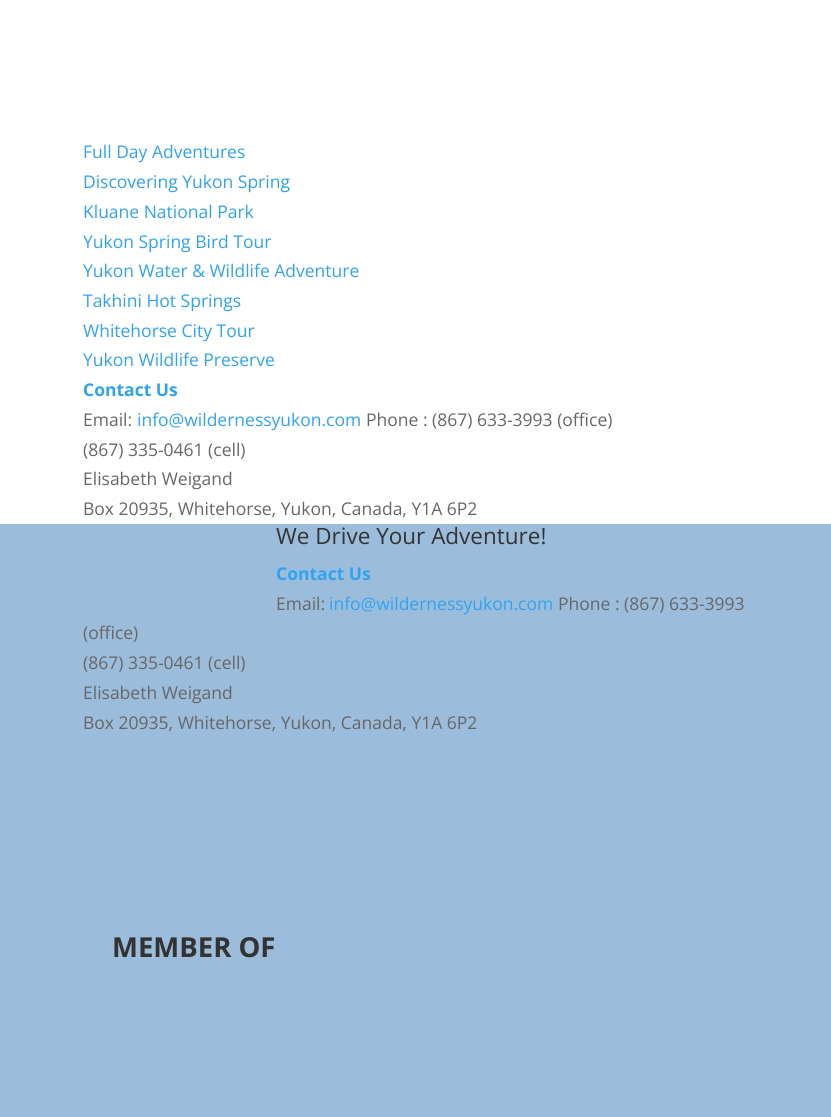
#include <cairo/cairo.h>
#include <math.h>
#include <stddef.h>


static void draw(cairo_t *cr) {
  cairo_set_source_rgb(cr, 155 / 255.0, 189 / 255.0, 219 / 255.0);
  cairo_paint(cr);
  cairo_set_source_rgb(cr, 1, 1, 1);
  cairo_rectangle(cr, 0, 0, 831, 524);
  cairo_fill(cr);
  cairo_select_font_face(cr, "Open Sans", CAIRO_FONT_SLANT_NORMAL, CAIRO_FONT_WEIGHT_NORMAL);
  cairo_set_font_size(cr, 17.5);
  cairo_set_source_rgb(cr, 46 / 255.0, 163 / 255.0, 242 / 255.0);
  cairo_move_to(cr, 83, 158);
  cairo_show_text(cr, "Full Day Adventures");
  cairo_move_to(cr, 83, 188);
  cairo_show_text(cr, "Discovering Yukon Spring");
  cairo_move_to(cr, 83, 218);
  cairo_show_text(cr, "Kluane National Park");
  cairo_move_to(cr, 83, 248);
  cairo_show_text(cr, "Yukon Spring Bird Tour");
  cairo_move_to(cr, 83, 277);
  cairo_show_text(cr, "Yukon Water & Wildlife Adventure");
  cairo_move_to(cr, 83, 307);
  cairo_show_text(cr, "Takhini Hot Springs");
  cairo_move_to(cr, 83, 337);
  cairo_show_text(cr, "Whitehorse City Tour");
  cairo_move_to(cr, 83, 366);
  cairo_show_text(cr, "Yukon Wildlife Preserve");
  cairo_select_font_face(cr, "Open Sans", CAIRO_FONT_SLANT_NORMAL, CAIRO_FONT_WEIGHT_BOLD);
  cairo_move_to(cr, 83, 396);
  cairo_show_text(cr, "Contact Us");
  cairo_select_font_face(cr, "Open Sans", CAIRO_FONT_SLANT_NORMAL, CAIRO_FONT_WEIGHT_NORMAL);
  cairo_set_source_rgb(cr, 102 / 255.0, 102 / 255.0, 102 / 255.0);
  cairo_move_to(cr, 83, 426);
  cairo_show_text(cr, "Email:");
  cairo_set_source_rgb(cr, 46 / 255.0, 163 / 255.0, 242 / 255.0);
  cairo_move_to(cr, 137, 426);
  cairo_show_text(cr, "info@wildernessyukon.com");
  cairo_set_source_rgb(cr, 102 / 255.0, 102 / 255.0, 102 / 255.0);
  cairo_move_to(cr, 366, 426);
  cairo_show_text(cr, "Phone : (867) 633-3993 (office)");
  cairo_move_to(cr, 83, 456);
  cairo_show_text(cr, "(867) 335-0461 (cell)");
  cairo_move_to(cr, 83, 485);
  cairo_show_text(cr, "Elisabeth Weigand");
  cairo_move_to(cr, 83, 515);
  cairo_show_text(cr, "Box 20935, Whitehorse, Yukon, Canada, Y1A 6P2");
  cairo_set_font_size(cr, 22.5);
  cairo_set_source_rgb(cr, 51 / 255.0, 51 / 255.0, 51 / 255.0);
  cairo_move_to(cr, 276, 544);
  cairo_show_text(cr, "We Drive Your Adventure!");
  cairo_select_font_face(cr, "Open Sans", CAIRO_FONT_SLANT_NORMAL, CAIRO_FONT_WEIGHT_BOLD);
  cairo_set_font_size(cr, 17.5);
  cairo_set_source_rgb(cr, 46 / 255.0, 163 / 255.0, 242 / 255.0);
  cairo_move_to(cr, 276, 580);
  cairo_show_text(cr, "Contact Us");
  cairo_select_font_face(cr, "Open Sans", CAIRO_FONT_SLANT_NORMAL, CAIRO_FONT_WEIGHT_NORMAL);
  cairo_set_source_rgb(cr, 102 / 255.0, 102 / 255.0, 102 / 255.0);
  cairo_move_to(cr, 276, 610);
  cairo_show_text(cr, "Email:");
  cairo_set_source_rgb(cr, 46 / 255.0, 163 / 255.0, 242 / 255.0);
  cairo_move_to(cr, 329, 610);
  cairo_show_text(cr, "info@wildernessyukon.com");
  cairo_set_source_rgb(cr, 102 / 255.0, 102 / 255.0, 102 / 255.0);
  cairo_move_to(cr, 558, 610);
  cairo_show_text(cr, "Phone : (867) 633-3993");
  cairo_move_to(cr, 83, 639);
  cairo_show_text(cr, "(office)");
  cairo_move_to(cr, 83, 669);
  cairo_show_text(cr, "(867) 335-0461 (cell)");
  cairo_move_to(cr, 83, 699);
  cairo_show_text(cr, "Elisabeth Weigand");
  cairo_move_to(cr, 83, 729);
  cairo_show_text(cr, "Box 20935, Whitehorse, Yukon, Canada, Y1A 6P2");
  cairo_select_font_face(cr, "Open Sans", CAIRO_FONT_SLANT_NORMAL, CAIRO_FONT_WEIGHT_BOLD);
  cairo_set_font_size(cr, 27.5);
  cairo_set_source_rgb(cr, 51 / 255.0, 51 / 255.0, 51 / 255.0);
  cairo_move_to(cr, 112, 957);
  cairo_show_text(cr, "MEMBER OF");
}

int main(void) {
  cairo_surface_t *surface = cairo_image_surface_create(CAIRO_FORMAT_RGB24, 831, 1117);
  cairo_t *cr = cairo_create(surface);
  cairo_font_options_t *options = cairo_font_options_create();
  cairo_font_options_set_hint_metrics(options, CAIRO_HINT_METRICS_OFF);
  cairo_font_options_set_hint_style(options, CAIRO_HINT_STYLE_NONE);
  cairo_set_font_options(cr, options);
  cairo_set_miter_limit(cr, 4);
  draw(cr);
  cairo_surface_write_to_png(surface, "out.png");
  cairo_font_options_destroy(options);
  cairo_destroy(cr);
  cairo_surface_destroy(surface);
  return 0;
}
